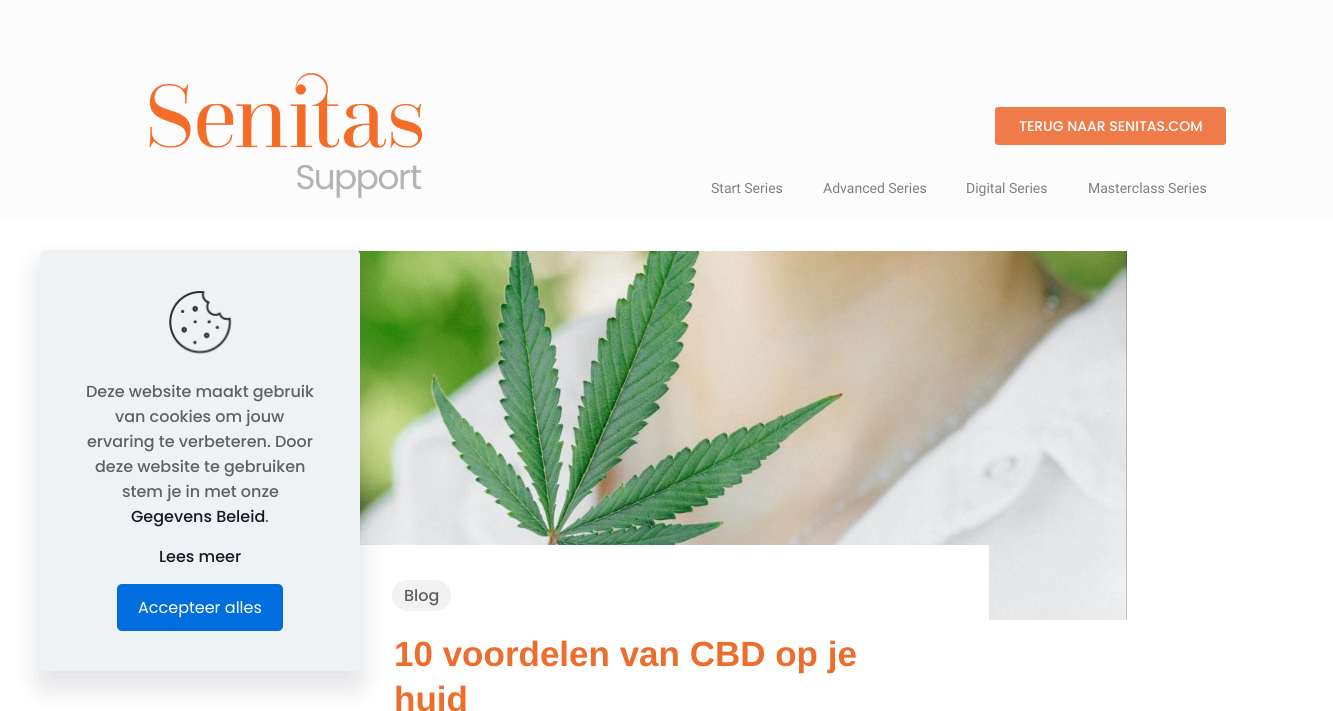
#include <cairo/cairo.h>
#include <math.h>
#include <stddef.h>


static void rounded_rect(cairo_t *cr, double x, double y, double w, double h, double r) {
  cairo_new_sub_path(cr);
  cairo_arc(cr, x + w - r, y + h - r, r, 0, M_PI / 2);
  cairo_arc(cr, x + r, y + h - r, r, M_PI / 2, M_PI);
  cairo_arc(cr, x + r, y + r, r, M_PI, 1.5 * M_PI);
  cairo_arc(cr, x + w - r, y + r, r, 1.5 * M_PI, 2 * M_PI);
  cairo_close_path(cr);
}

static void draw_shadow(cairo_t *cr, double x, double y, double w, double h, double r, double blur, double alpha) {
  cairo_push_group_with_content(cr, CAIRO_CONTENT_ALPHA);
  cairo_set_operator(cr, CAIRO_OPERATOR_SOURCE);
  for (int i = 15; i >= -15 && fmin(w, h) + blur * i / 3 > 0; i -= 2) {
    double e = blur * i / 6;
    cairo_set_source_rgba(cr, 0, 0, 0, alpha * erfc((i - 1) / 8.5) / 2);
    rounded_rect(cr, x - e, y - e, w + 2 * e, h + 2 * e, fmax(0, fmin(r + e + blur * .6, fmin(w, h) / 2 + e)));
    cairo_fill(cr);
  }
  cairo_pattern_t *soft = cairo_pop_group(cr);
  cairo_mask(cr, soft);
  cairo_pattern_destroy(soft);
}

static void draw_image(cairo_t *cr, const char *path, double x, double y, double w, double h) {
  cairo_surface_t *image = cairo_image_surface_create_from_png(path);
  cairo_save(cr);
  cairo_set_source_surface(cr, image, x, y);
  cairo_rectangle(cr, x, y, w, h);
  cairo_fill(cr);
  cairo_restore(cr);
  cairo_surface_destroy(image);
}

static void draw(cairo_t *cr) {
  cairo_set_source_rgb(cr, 252 / 255.0, 252 / 255.0, 252 / 255.0);
  cairo_paint(cr);
  draw_image(cr, "images/1.png", 149, 73, 274, 125);
  cairo_set_source_rgb(cr, 239 / 255.0, 123 / 255.0, 75 / 255.0);
  rounded_rect(cr, 995, 107, 231, 38, 3);
  cairo_fill(cr);
  cairo_set_source_rgb(cr, 1, 1, 1);
  cairo_rectangle(cr, 0, 221, 1333, 490);
  cairo_fill(cr);
  draw_image(cr, "images/3.png", 358, 251, 769, 369);
  cairo_rectangle(cr, 358, 545, 631, 75);
  cairo_fill(cr);
  cairo_set_source_rgb(cr, 242 / 255.0, 242 / 255.0, 242 / 255.0);
  rounded_rect(cr, 392, 580, 59, 31, 15.5);
  cairo_fill(cr);
  cairo_set_source_rgb(cr, 1 / 255.0, 7 / 255.0, 39 / 255.0);
  draw_shadow(cr, 40, 265, 320, 421, 5, 15, 0.13);
  cairo_set_source_rgb(cr, 238 / 255.0, 242 / 255.0, 245 / 255.0);
  rounded_rect(cr, 40, 250, 320, 421, 5);
  cairo_fill(cr);
  draw_image(cr, "images/2.png", 169, 291, 63, 63);
  cairo_set_source_rgb(cr, 0, 110 / 255.0, 223 / 255.0);
  rounded_rect(cr, 117, 584, 166, 47, 5);
  cairo_fill(cr);
  rounded_rect(cr, 118.5, 585.5, 163, 44, 3.5);
  cairo_set_source_rgb(cr, 0, 107 / 255.0, 216 / 255.0);
  cairo_set_line_width(cr, 1);
  cairo_stroke(cr);
  cairo_select_font_face(cr, "Poppins Medium", CAIRO_FONT_SLANT_NORMAL, CAIRO_FONT_WEIGHT_NORMAL);
  cairo_set_font_size(cr, 14);
  cairo_set_source_rgb(cr, 1, 1, 1);
  cairo_move_to(cr, 1019, 131);
  cairo_show_text(cr, "TERUG NAAR SENITAS.COM");
  cairo_select_font_face(cr, "Roboto", CAIRO_FONT_SLANT_NORMAL, CAIRO_FONT_WEIGHT_NORMAL);
  cairo_set_source_rgb(cr, 127 / 255.0, 128 / 255.0, 128 / 255.0);
  cairo_move_to(cr, 711, 193);
  cairo_show_text(cr, "Start Series");
  cairo_move_to(cr, 823, 193);
  cairo_show_text(cr, "Advanced Series");
  cairo_move_to(cr, 966, 193);
  cairo_show_text(cr, "Digital Series");
  cairo_move_to(cr, 1088, 193);
  cairo_show_text(cr, "Masterclass Series");
  cairo_select_font_face(cr, "Poppins Medium", CAIRO_FONT_SLANT_NORMAL, CAIRO_FONT_WEIGHT_NORMAL);
  cairo_set_font_size(cr, 16);
  cairo_set_source_rgb(cr, 97 / 255.0, 97 / 255.0, 97 / 255.0);
  cairo_move_to(cr, 86, 397);
  cairo_show_text(cr, "Deze website maakt gebruik");
  cairo_move_to(cr, 115, 422);
  cairo_show_text(cr, "van cookies om jouw");
  cairo_move_to(cr, 87, 447);
  cairo_show_text(cr, "ervaring te verbeteren. Door");
  cairo_move_to(cr, 95, 472);
  cairo_show_text(cr, "deze website te gebruiken");
  cairo_move_to(cr, 122, 497);
  cairo_show_text(cr, "stem je in met onze");
  cairo_set_source_rgb(cr, 22 / 255.0, 25 / 255.0, 34 / 255.0);
  cairo_move_to(cr, 131, 522);
  cairo_show_text(cr, "Gegevens Beleid");
  cairo_set_source_rgb(cr, 97 / 255.0, 97 / 255.0, 97 / 255.0);
  cairo_move_to(cr, 265, 522);
  cairo_show_text(cr, ".");
  cairo_set_source_rgb(cr, 22 / 255.0, 25 / 255.0, 34 / 255.0);
  cairo_move_to(cr, 159, 562);
  cairo_show_text(cr, "Lees meer");
  cairo_select_font_face(cr, "Poppins", CAIRO_FONT_SLANT_NORMAL, CAIRO_FONT_WEIGHT_NORMAL);
  cairo_set_source_rgb(cr, 1, 1, 1);
  cairo_move_to(cr, 138, 613);
  cairo_show_text(cr, "Accepteer alles");
  cairo_select_font_face(cr, "Poppins Medium", CAIRO_FONT_SLANT_NORMAL, CAIRO_FONT_WEIGHT_NORMAL);
  cairo_set_source_rgb(cr, 97 / 255.0, 97 / 255.0, 97 / 255.0);
  cairo_move_to(cr, 404, 601);
  cairo_show_text(cr, "Blog");
  cairo_select_font_face(cr, "Liberation Sans", CAIRO_FONT_SLANT_NORMAL, CAIRO_FONT_WEIGHT_BOLD);
  cairo_set_font_size(cr, 35);
  cairo_set_source_rgb(cr, 237 / 255.0, 109 / 255.0, 45 / 255.0);
  cairo_move_to(cr, 394, 666);
  cairo_show_text(cr, "10 voordelen van CBD op je");
  cairo_move_to(cr, 394, 711);
  cairo_show_text(cr, "huid");
}

int main(void) {
  cairo_surface_t *surface = cairo_image_surface_create(CAIRO_FORMAT_RGB24, 1333, 711);
  cairo_t *cr = cairo_create(surface);
  cairo_font_options_t *options = cairo_font_options_create();
  cairo_font_options_set_hint_metrics(options, CAIRO_HINT_METRICS_OFF);
  cairo_font_options_set_hint_style(options, CAIRO_HINT_STYLE_NONE);
  cairo_set_font_options(cr, options);
  cairo_set_miter_limit(cr, 4);
  draw(cr);
  cairo_surface_write_to_png(surface, "out.png");
  cairo_font_options_destroy(options);
  cairo_destroy(cr);
  cairo_surface_destroy(surface);
  return 0;
}
